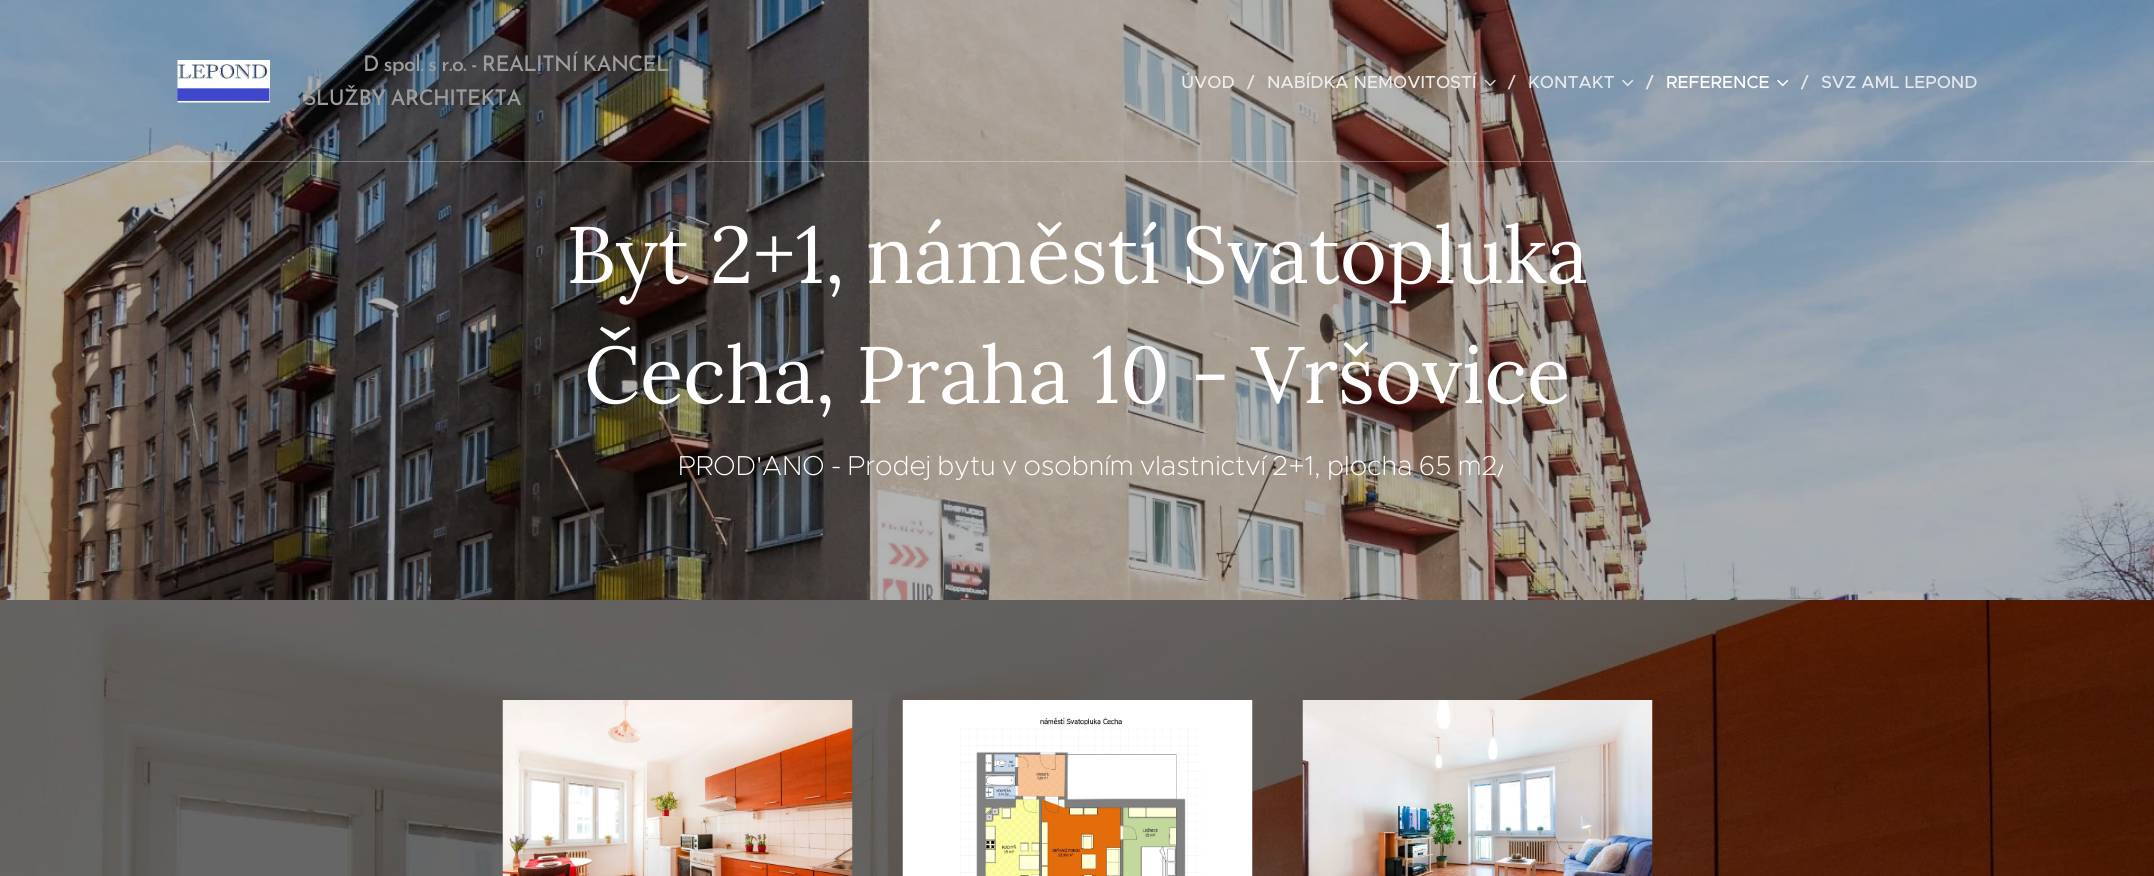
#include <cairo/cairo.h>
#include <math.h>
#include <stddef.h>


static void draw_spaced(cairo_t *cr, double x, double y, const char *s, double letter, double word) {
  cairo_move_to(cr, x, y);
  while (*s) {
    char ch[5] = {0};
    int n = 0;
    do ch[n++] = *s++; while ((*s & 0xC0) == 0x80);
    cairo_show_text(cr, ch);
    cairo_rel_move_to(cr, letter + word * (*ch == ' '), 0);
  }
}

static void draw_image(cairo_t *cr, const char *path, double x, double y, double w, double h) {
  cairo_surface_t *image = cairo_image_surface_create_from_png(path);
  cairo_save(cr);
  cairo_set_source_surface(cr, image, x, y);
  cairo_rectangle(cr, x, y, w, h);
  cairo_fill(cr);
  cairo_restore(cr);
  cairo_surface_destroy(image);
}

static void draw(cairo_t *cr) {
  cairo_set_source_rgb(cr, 1, 1, 1);
  cairo_paint(cr);
  draw_image(cr, "images/5.png", 0, 0, 2154, 600);
  draw_image(cr, "images/1.png", 177, 60, 93, 43);
  draw_image(cr, "images/2.png", 1484, 79, 12, 8);
  draw_image(cr, "images/3.png", 1622, 79, 12, 8);
  draw_image(cr, "images/4.png", 1777, 79, 12, 8);
  cairo_set_source_rgba(cr, 1, 1, 1, 0.3);
  cairo_rectangle(cr, 0, 161, 2154, 1);
  cairo_fill(cr);
  draw_image(cr, "images/6.png", 0, 600, 2154, 276);
  draw_image(cr, "images/7.png", 502, 700, 351, 176);
  draw_image(cr, "images/8.png", 902, 700, 351, 176);
  draw_image(cr, "images/9.png", 1302, 700, 351, 176);
  cairo_select_font_face(cr, "Josefin Sans Medium", CAIRO_FONT_SLANT_NORMAL, CAIRO_FONT_WEIGHT_NORMAL);
  cairo_set_font_size(cr, 21.5);
  cairo_set_source_rgb(cr, 157 / 255.0, 157 / 255.0, 157 / 255.0);
  draw_spaced(cr, 363, 71, "D spol. s r.o. - REALITNÍ KANCEL", -0.65, -1.25);
  draw_spaced(cr, 304, 105, "SLUŽBY ARCHITEKTA", -0.65, -1.25);
  cairo_select_font_face(cr, "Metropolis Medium", CAIRO_FONT_SLANT_NORMAL, CAIRO_FONT_WEIGHT_NORMAL);
  cairo_set_font_size(cr, 17.5);
  cairo_set_source_rgb(cr, 237 / 255.0, 236 / 255.0, 235 / 255.0);
  cairo_move_to(cr, 1181, 88);
  cairo_show_text(cr, "ÚVOD");
  cairo_move_to(cr, 1247, 88);
  cairo_show_text(cr, "/");
  cairo_move_to(cr, 1267, 88);
  cairo_show_text(cr, "NABÍDKA NEMOVITOSTÍ");
  cairo_set_source_rgb(cr, 222 / 255.0, 213 / 255.0, 212 / 255.0);
  cairo_move_to(cr, 1508, 88);
  cairo_show_text(cr, "/");
  cairo_set_source_rgb(cr, 230 / 255.0, 233 / 255.0, 237 / 255.0);
  cairo_move_to(cr, 1528, 88);
  cairo_show_text(cr, "KONTAKT");
  cairo_set_source_rgb(cr, 237 / 255.0, 236 / 255.0, 235 / 255.0);
  cairo_move_to(cr, 1646, 88);
  cairo_show_text(cr, "/");
  cairo_set_source_rgb(cr, 1, 1, 1);
  cairo_move_to(cr, 1666, 88);
  cairo_show_text(cr, "REFERENCE");
  cairo_set_source_rgb(cr, 230 / 255.0, 233 / 255.0, 237 / 255.0);
  cairo_move_to(cr, 1801, 88);
  cairo_show_text(cr, "/");
  cairo_move_to(cr, 1821, 88);
  cairo_show_text(cr, "SVZ AML LEPOND");
  cairo_select_font_face(cr, "Lora", CAIRO_FONT_SLANT_NORMAL, CAIRO_FONT_WEIGHT_NORMAL);
  cairo_set_font_size(cr, 80);
  cairo_set_source_rgb(cr, 1, 1, 1);
  cairo_move_to(cr, 566, 283);
  cairo_show_text(cr, "Byt 2+1, náměstí Svatopluka");
  cairo_move_to(cr, 584, 403);
  cairo_show_text(cr, "Čecha, Praha 10 - Vršovice");
  cairo_save(cr);
  cairo_rectangle(cr, 653, 440, 850, 54);
  cairo_clip(cr);
  cairo_select_font_face(cr, "Metropolis ExtraLight", CAIRO_FONT_SLANT_NORMAL, CAIRO_FONT_WEIGHT_NORMAL);
  cairo_set_font_size(cr, 27.5);
  draw_spaced(cr, 678, 475, "PROD'ANO - Prodej bytu v osobním vlastnictví 2+1, plocha 65 m2/", 0, -1.6);
  cairo_restore(cr);
}

int main(void) {
  cairo_surface_t *surface = cairo_image_surface_create(CAIRO_FORMAT_RGB24, 2154, 876);
  cairo_t *cr = cairo_create(surface);
  cairo_font_options_t *options = cairo_font_options_create();
  cairo_font_options_set_hint_metrics(options, CAIRO_HINT_METRICS_OFF);
  cairo_font_options_set_hint_style(options, CAIRO_HINT_STYLE_NONE);
  cairo_set_font_options(cr, options);
  cairo_set_miter_limit(cr, 4);
  draw(cr);
  cairo_surface_write_to_png(surface, "out.png");
  cairo_font_options_destroy(options);
  cairo_destroy(cr);
  cairo_surface_destroy(surface);
  return 0;
}
